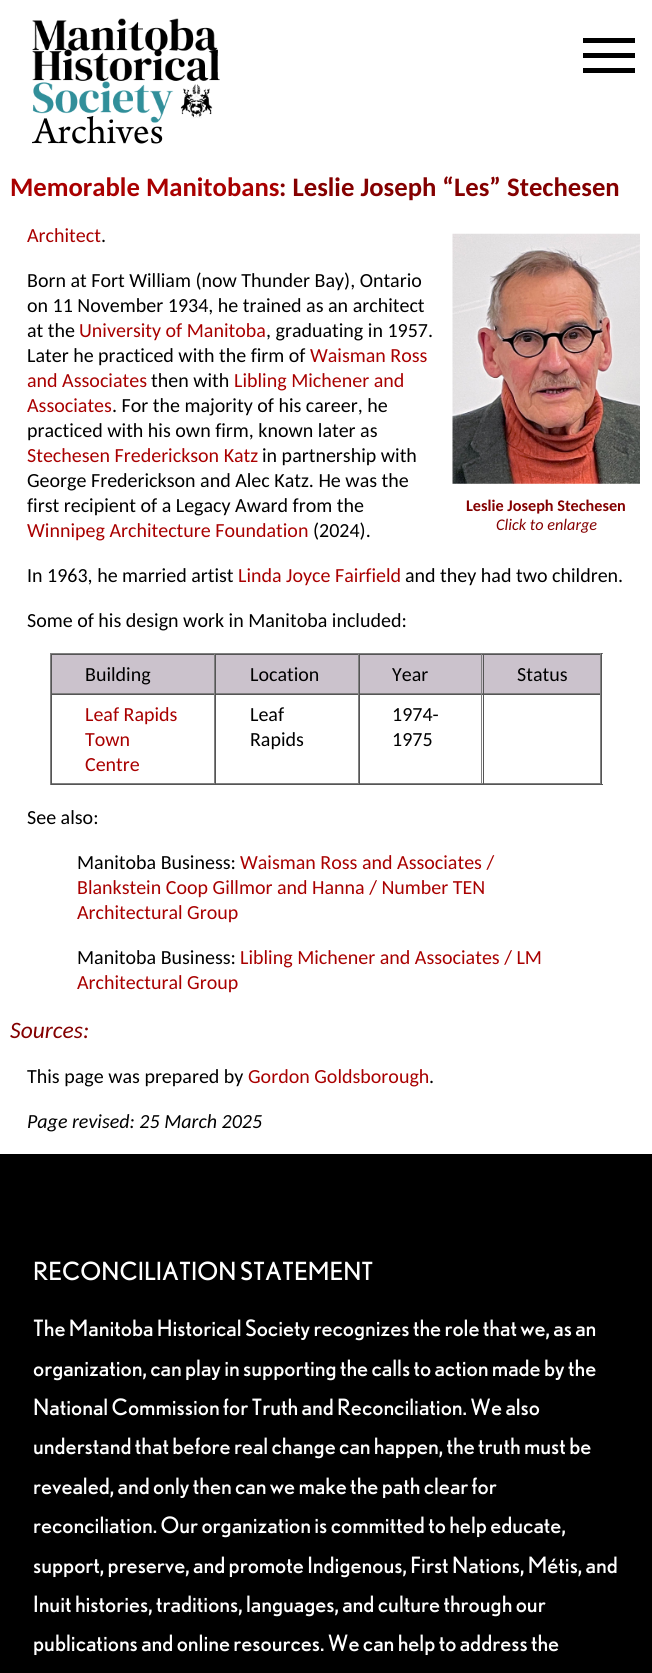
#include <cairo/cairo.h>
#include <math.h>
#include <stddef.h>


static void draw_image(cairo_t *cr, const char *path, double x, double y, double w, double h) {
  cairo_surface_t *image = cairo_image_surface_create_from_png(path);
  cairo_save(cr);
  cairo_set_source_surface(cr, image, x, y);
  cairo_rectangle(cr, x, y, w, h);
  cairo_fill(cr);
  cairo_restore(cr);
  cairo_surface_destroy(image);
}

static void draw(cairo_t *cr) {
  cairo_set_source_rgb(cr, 1, 1, 1);
  cairo_paint(cr);
  cairo_set_source_rgb(cr, 0, 0, 0);
  cairo_rectangle(cr, 583, 53, 52, 5);
  cairo_fill(cr);
  cairo_rectangle(cr, 583, 38, 52, 5);
  cairo_fill(cr);
  cairo_rectangle(cr, 583, 68, 52, 5);
  cairo_fill(cr);
  draw_image(cr, "images/1.png", 32, 18, 188, 105);
  draw_image(cr, "images/2.png", 452, 233, 188, 251);
  cairo_set_source_rgb(cr, 128 / 255.0, 128 / 255.0, 128 / 255.0);
  cairo_rectangle(cr, 50, 653, 553, 1);
  cairo_fill(cr);
  cairo_set_source_rgb(cr, 85 / 255.0, 85 / 255.0, 85 / 255.0);
  cairo_rectangle(cr, 601, 653, 1, 132);
  cairo_fill(cr);
  cairo_rectangle(cr, 50, 784, 553, 1);
  cairo_fill(cr);
  cairo_set_source_rgb(cr, 128 / 255.0, 128 / 255.0, 128 / 255.0);
  cairo_rectangle(cr, 50, 653, 1, 132);
  cairo_fill(cr);
  cairo_set_source_rgb(cr, 203 / 255.0, 194 / 255.0, 204 / 255.0);
  cairo_rectangle(cr, 52, 655, 162, 38);
  cairo_fill(cr);
  cairo_set_source_rgb(cr, 85 / 255.0, 85 / 255.0, 85 / 255.0);
  cairo_rectangle(cr, 51, 654, 550, 1);
  cairo_fill(cr);
  cairo_set_source_rgb(cr, 128 / 255.0, 128 / 255.0, 128 / 255.0);
  cairo_rectangle(cr, 214, 654, 1, 40);
  cairo_fill(cr);
  cairo_rectangle(cr, 51, 693, 164, 1);
  cairo_fill(cr);
  cairo_set_source_rgb(cr, 85 / 255.0, 85 / 255.0, 85 / 255.0);
  cairo_rectangle(cr, 51, 654, 1, 40);
  cairo_fill(cr);
  cairo_set_source_rgb(cr, 203 / 255.0, 194 / 255.0, 204 / 255.0);
  cairo_rectangle(cr, 216, 655, 142, 38);
  cairo_fill(cr);
  cairo_set_source_rgb(cr, 128 / 255.0, 128 / 255.0, 128 / 255.0);
  cairo_rectangle(cr, 358, 654, 1, 40);
  cairo_fill(cr);
  cairo_rectangle(cr, 215, 693, 144, 1);
  cairo_fill(cr);
  cairo_set_source_rgb(cr, 85 / 255.0, 85 / 255.0, 85 / 255.0);
  cairo_rectangle(cr, 215, 654, 1, 40);
  cairo_fill(cr);
  cairo_set_source_rgb(cr, 203 / 255.0, 194 / 255.0, 204 / 255.0);
  cairo_rectangle(cr, 360, 655, 123, 38);
  cairo_fill(cr);
  cairo_set_source_rgb(cr, 128 / 255.0, 128 / 255.0, 128 / 255.0);
  cairo_rectangle(cr, 481, 654, 1, 40);
  cairo_fill(cr);
  cairo_rectangle(cr, 359, 693, 124, 1);
  cairo_fill(cr);
  cairo_set_source_rgb(cr, 85 / 255.0, 85 / 255.0, 85 / 255.0);
  cairo_rectangle(cr, 359, 654, 1, 40);
  cairo_fill(cr);
  cairo_set_source_rgb(cr, 203 / 255.0, 194 / 255.0, 204 / 255.0);
  cairo_rectangle(cr, 484, 655, 116, 38);
  cairo_fill(cr);
  cairo_set_source_rgb(cr, 128 / 255.0, 128 / 255.0, 128 / 255.0);
  cairo_rectangle(cr, 600, 654, 1, 40);
  cairo_fill(cr);
  cairo_rectangle(cr, 483, 693, 118, 1);
  cairo_fill(cr);
  cairo_set_source_rgb(cr, 85 / 255.0, 85 / 255.0, 85 / 255.0);
  cairo_rectangle(cr, 483, 654, 1, 40);
  cairo_fill(cr);
  cairo_rectangle(cr, 51, 694, 550, 1);
  cairo_fill(cr);
  cairo_set_source_rgb(cr, 128 / 255.0, 128 / 255.0, 128 / 255.0);
  cairo_rectangle(cr, 214, 694, 1, 90);
  cairo_fill(cr);
  cairo_rectangle(cr, 51, 783, 164, 1);
  cairo_fill(cr);
  cairo_set_source_rgb(cr, 85 / 255.0, 85 / 255.0, 85 / 255.0);
  cairo_rectangle(cr, 51, 694, 1, 90);
  cairo_fill(cr);
  cairo_set_source_rgb(cr, 128 / 255.0, 128 / 255.0, 128 / 255.0);
  cairo_rectangle(cr, 358, 694, 1, 90);
  cairo_fill(cr);
  cairo_rectangle(cr, 215, 783, 144, 1);
  cairo_fill(cr);
  cairo_set_source_rgb(cr, 85 / 255.0, 85 / 255.0, 85 / 255.0);
  cairo_rectangle(cr, 215, 694, 1, 90);
  cairo_fill(cr);
  cairo_set_source_rgb(cr, 128 / 255.0, 128 / 255.0, 128 / 255.0);
  cairo_rectangle(cr, 481, 694, 1, 90);
  cairo_fill(cr);
  cairo_rectangle(cr, 359, 783, 124, 1);
  cairo_fill(cr);
  cairo_set_source_rgb(cr, 85 / 255.0, 85 / 255.0, 85 / 255.0);
  cairo_rectangle(cr, 359, 694, 1, 90);
  cairo_fill(cr);
  cairo_set_source_rgb(cr, 128 / 255.0, 128 / 255.0, 128 / 255.0);
  cairo_rectangle(cr, 600, 694, 1, 90);
  cairo_fill(cr);
  cairo_rectangle(cr, 483, 783, 118, 1);
  cairo_fill(cr);
  cairo_set_source_rgb(cr, 85 / 255.0, 85 / 255.0, 85 / 255.0);
  cairo_rectangle(cr, 483, 694, 1, 90);
  cairo_fill(cr);
  cairo_set_source_rgb(cr, 0, 0, 0);
  cairo_rectangle(cr, 0, 1154, 652, 519);
  cairo_fill(cr);
  cairo_select_font_face(cr, "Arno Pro", CAIRO_FONT_SLANT_NORMAL, CAIRO_FONT_WEIGHT_NORMAL);
  cairo_set_font_size(cr, 40);
  cairo_move_to(cr, 33, 143);
  cairo_show_text(cr, "Archives");
  cairo_select_font_face(cr, "Carlito", CAIRO_FONT_SLANT_NORMAL, CAIRO_FONT_WEIGHT_BOLD);
  cairo_set_font_size(cr, 26.7);
  cairo_set_source_rgb(cr, 169 / 255.0, 0, 0);
  cairo_move_to(cr, 10, 196);
  cairo_show_text(cr, "Memorable Manitobans");
  cairo_set_source_rgb(cr, 132 / 255.0, 0, 0);
  cairo_move_to(cr, 279, 196);
  cairo_show_text(cr, ": Leslie Joseph “Les” Stechesen");
  cairo_select_font_face(cr, "Carlito", CAIRO_FONT_SLANT_NORMAL, CAIRO_FONT_WEIGHT_NORMAL);
  cairo_set_font_size(cr, 20);
  cairo_set_source_rgb(cr, 169 / 255.0, 0, 0);
  cairo_move_to(cr, 27, 242);
  cairo_show_text(cr, "Architect");
  cairo_set_source_rgb(cr, 0, 0, 0);
  cairo_move_to(cr, 101, 242);
  cairo_show_text(cr, ".");
  cairo_move_to(cr, 27, 287);
  cairo_show_text(cr, "Born at Fort William (now Thunder Bay), Ontario");
  cairo_move_to(cr, 27, 312);
  cairo_show_text(cr, "on 11 November 1934, he trained as an architect");
  cairo_move_to(cr, 27, 337);
  cairo_show_text(cr, "at the");
  cairo_set_source_rgb(cr, 169 / 255.0, 0, 0);
  cairo_move_to(cr, 79, 337);
  cairo_show_text(cr, "University of Manitoba");
  cairo_set_source_rgb(cr, 0, 0, 0);
  cairo_move_to(cr, 266, 337);
  cairo_show_text(cr, ", graduating in 1957.");
  cairo_move_to(cr, 27, 362);
  cairo_show_text(cr, "Later he practiced with the firm of");
  cairo_set_source_rgb(cr, 169 / 255.0, 0, 0);
  cairo_move_to(cr, 310, 362);
  cairo_show_text(cr, "Waisman Ross");
  cairo_move_to(cr, 27, 387);
  cairo_show_text(cr, "and Associates");
  cairo_set_source_rgb(cr, 0, 0, 0);
  cairo_move_to(cr, 151, 387);
  cairo_show_text(cr, "then with");
  cairo_set_source_rgb(cr, 169 / 255.0, 0, 0);
  cairo_move_to(cr, 234, 387);
  cairo_show_text(cr, "Libling Michener and");
  cairo_move_to(cr, 27, 412);
  cairo_show_text(cr, "Associates");
  cairo_set_source_rgb(cr, 0, 0, 0);
  cairo_move_to(cr, 112, 412);
  cairo_show_text(cr, ". For the majority of his career, he");
  cairo_move_to(cr, 27, 437);
  cairo_show_text(cr, "practiced with his own firm, known later as");
  cairo_set_source_rgb(cr, 169 / 255.0, 0, 0);
  cairo_move_to(cr, 27, 462);
  cairo_show_text(cr, "Stechesen Frederickson Katz");
  cairo_set_source_rgb(cr, 0, 0, 0);
  cairo_move_to(cr, 262, 462);
  cairo_show_text(cr, "in partnership with");
  cairo_move_to(cr, 27, 487);
  cairo_show_text(cr, "George Frederickson and Alec Katz. He was the");
  cairo_move_to(cr, 27, 512);
  cairo_show_text(cr, "first recipient of a Legacy Award from the");
  cairo_set_source_rgb(cr, 169 / 255.0, 0, 0);
  cairo_move_to(cr, 27, 537);
  cairo_show_text(cr, "Winnipeg Architecture Foundation");
  cairo_set_source_rgb(cr, 0, 0, 0);
  cairo_move_to(cr, 313, 537);
  cairo_show_text(cr, "(2024).");
  cairo_select_font_face(cr, "Carlito", CAIRO_FONT_SLANT_NORMAL, CAIRO_FONT_WEIGHT_BOLD);
  cairo_set_font_size(cr, 16.25);
  cairo_set_source_rgb(cr, 132 / 255.0, 0, 0);
  cairo_move_to(cr, 466, 511);
  cairo_show_text(cr, "Leslie Joseph Stechesen");
  cairo_select_font_face(cr, "Carlito", CAIRO_FONT_SLANT_ITALIC, CAIRO_FONT_WEIGHT_NORMAL);
  cairo_move_to(cr, 496, 530);
  cairo_show_text(cr, "Click to enlarge");
  cairo_select_font_face(cr, "Carlito", CAIRO_FONT_SLANT_NORMAL, CAIRO_FONT_WEIGHT_NORMAL);
  cairo_set_font_size(cr, 20);
  cairo_set_source_rgb(cr, 0, 0, 0);
  cairo_move_to(cr, 27, 582);
  cairo_show_text(cr, "In 1963, he married artist");
  cairo_set_source_rgb(cr, 169 / 255.0, 0, 0);
  cairo_move_to(cr, 238, 582);
  cairo_show_text(cr, "Linda Joyce Fairfield");
  cairo_set_source_rgb(cr, 0, 0, 0);
  cairo_move_to(cr, 405, 582);
  cairo_show_text(cr, "and they had two children.");
  cairo_move_to(cr, 27, 627);
  cairo_show_text(cr, "Some of his design work in Manitoba included:");
  cairo_move_to(cr, 85, 681);
  cairo_show_text(cr, "Building");
  cairo_move_to(cr, 250, 681);
  cairo_show_text(cr, "Location");
  cairo_move_to(cr, 392, 681);
  cairo_show_text(cr, "Year");
  cairo_move_to(cr, 517, 681);
  cairo_show_text(cr, "Status");
  cairo_set_source_rgb(cr, 169 / 255.0, 0, 0);
  cairo_move_to(cr, 85, 721);
  cairo_show_text(cr, "Leaf Rapids");
  cairo_move_to(cr, 85, 746);
  cairo_show_text(cr, "Town");
  cairo_move_to(cr, 85, 771);
  cairo_show_text(cr, "Centre");
  cairo_set_source_rgb(cr, 0, 0, 0);
  cairo_move_to(cr, 250, 721);
  cairo_show_text(cr, "Leaf");
  cairo_move_to(cr, 250, 746);
  cairo_show_text(cr, "Rapids");
  cairo_move_to(cr, 392, 721);
  cairo_show_text(cr, "1974-");
  cairo_move_to(cr, 392, 746);
  cairo_show_text(cr, "1975");
  cairo_move_to(cr, 27, 824);
  cairo_show_text(cr, "See also:");
  cairo_move_to(cr, 77, 869);
  cairo_show_text(cr, "Manitoba Business:");
  cairo_set_source_rgb(cr, 169 / 255.0, 0, 0);
  cairo_move_to(cr, 240, 869);
  cairo_show_text(cr, "Waisman Ross and Associates /");
  cairo_move_to(cr, 77, 894);
  cairo_show_text(cr, "Blankstein Coop Gillmor and Hanna / Number TEN");
  cairo_move_to(cr, 77, 919);
  cairo_show_text(cr, "Architectural Group");
  cairo_set_source_rgb(cr, 0, 0, 0);
  cairo_move_to(cr, 77, 964);
  cairo_show_text(cr, "Manitoba Business:");
  cairo_set_source_rgb(cr, 169 / 255.0, 0, 0);
  cairo_move_to(cr, 240, 964);
  cairo_show_text(cr, "Libling Michener and Associates / LM");
  cairo_move_to(cr, 77, 989);
  cairo_show_text(cr, "Architectural Group");
  cairo_select_font_face(cr, "Carlito", CAIRO_FONT_SLANT_ITALIC, CAIRO_FONT_WEIGHT_NORMAL);
  cairo_set_font_size(cr, 23.5);
  cairo_set_source_rgb(cr, 132 / 255.0, 0, 0);
  cairo_move_to(cr, 10, 1038);
  cairo_show_text(cr, "Sources:");
  cairo_select_font_face(cr, "Carlito", CAIRO_FONT_SLANT_NORMAL, CAIRO_FONT_WEIGHT_NORMAL);
  cairo_set_font_size(cr, 20);
  cairo_set_source_rgb(cr, 0, 0, 0);
  cairo_move_to(cr, 27, 1083);
  cairo_show_text(cr, "This page was prepared by");
  cairo_set_source_rgb(cr, 169 / 255.0, 0, 0);
  cairo_move_to(cr, 248, 1083);
  cairo_show_text(cr, "Gordon Goldsborough");
  cairo_set_source_rgb(cr, 0, 0, 0);
  cairo_move_to(cr, 429, 1083);
  cairo_show_text(cr, ".");
  cairo_select_font_face(cr, "Carlito", CAIRO_FONT_SLANT_ITALIC, CAIRO_FONT_WEIGHT_NORMAL);
  cairo_move_to(cr, 27, 1128);
  cairo_show_text(cr, "Page revised: 25 March 2025");
  cairo_select_font_face(cr, "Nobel", CAIRO_FONT_SLANT_NORMAL, CAIRO_FONT_WEIGHT_NORMAL);
  cairo_set_font_size(cr, 25);
  cairo_set_source_rgb(cr, 1, 1, 1);
  cairo_move_to(cr, 33, 1280);
  cairo_show_text(cr, "RECONCILIATION STATEMENT");
  cairo_set_font_size(cr, 22.5);
  cairo_move_to(cr, 33, 1336);
  cairo_show_text(cr, "The Manitoba Historical Society recognizes the role that we, as an");
  cairo_move_to(cr, 33, 1376);
  cairo_show_text(cr, "organization, can play in supporting the calls to action made by the");
  cairo_move_to(cr, 33, 1415);
  cairo_show_text(cr, "National Commission for Truth and Reconciliation. We also");
  cairo_move_to(cr, 33, 1454);
  cairo_show_text(cr, "understand that before real change can happen, the truth must be");
  cairo_move_to(cr, 33, 1494);
  cairo_show_text(cr, "revealed, and only then can we make the path clear for");
  cairo_move_to(cr, 33, 1533);
  cairo_show_text(cr, "reconciliation. Our organization is committed to help educate,");
  cairo_move_to(cr, 33, 1573);
  cairo_show_text(cr, "support, preserve, and promote Indigenous, First Nations, Métis, and");
  cairo_move_to(cr, 33, 1612);
  cairo_show_text(cr, "Inuit histories, traditions, languages, and culture through our");
  cairo_move_to(cr, 33, 1651);
  cairo_show_text(cr, "publications and online resources. We can help to address the");
}

int main(void) {
  cairo_surface_t *surface = cairo_image_surface_create(CAIRO_FORMAT_RGB24, 652, 1673);
  cairo_t *cr = cairo_create(surface);
  cairo_font_options_t *options = cairo_font_options_create();
  cairo_font_options_set_hint_metrics(options, CAIRO_HINT_METRICS_OFF);
  cairo_font_options_set_hint_style(options, CAIRO_HINT_STYLE_NONE);
  cairo_set_font_options(cr, options);
  cairo_set_miter_limit(cr, 4);
  draw(cr);
  cairo_surface_write_to_png(surface, "out.png");
  cairo_font_options_destroy(options);
  cairo_destroy(cr);
  cairo_surface_destroy(surface);
  return 0;
}
